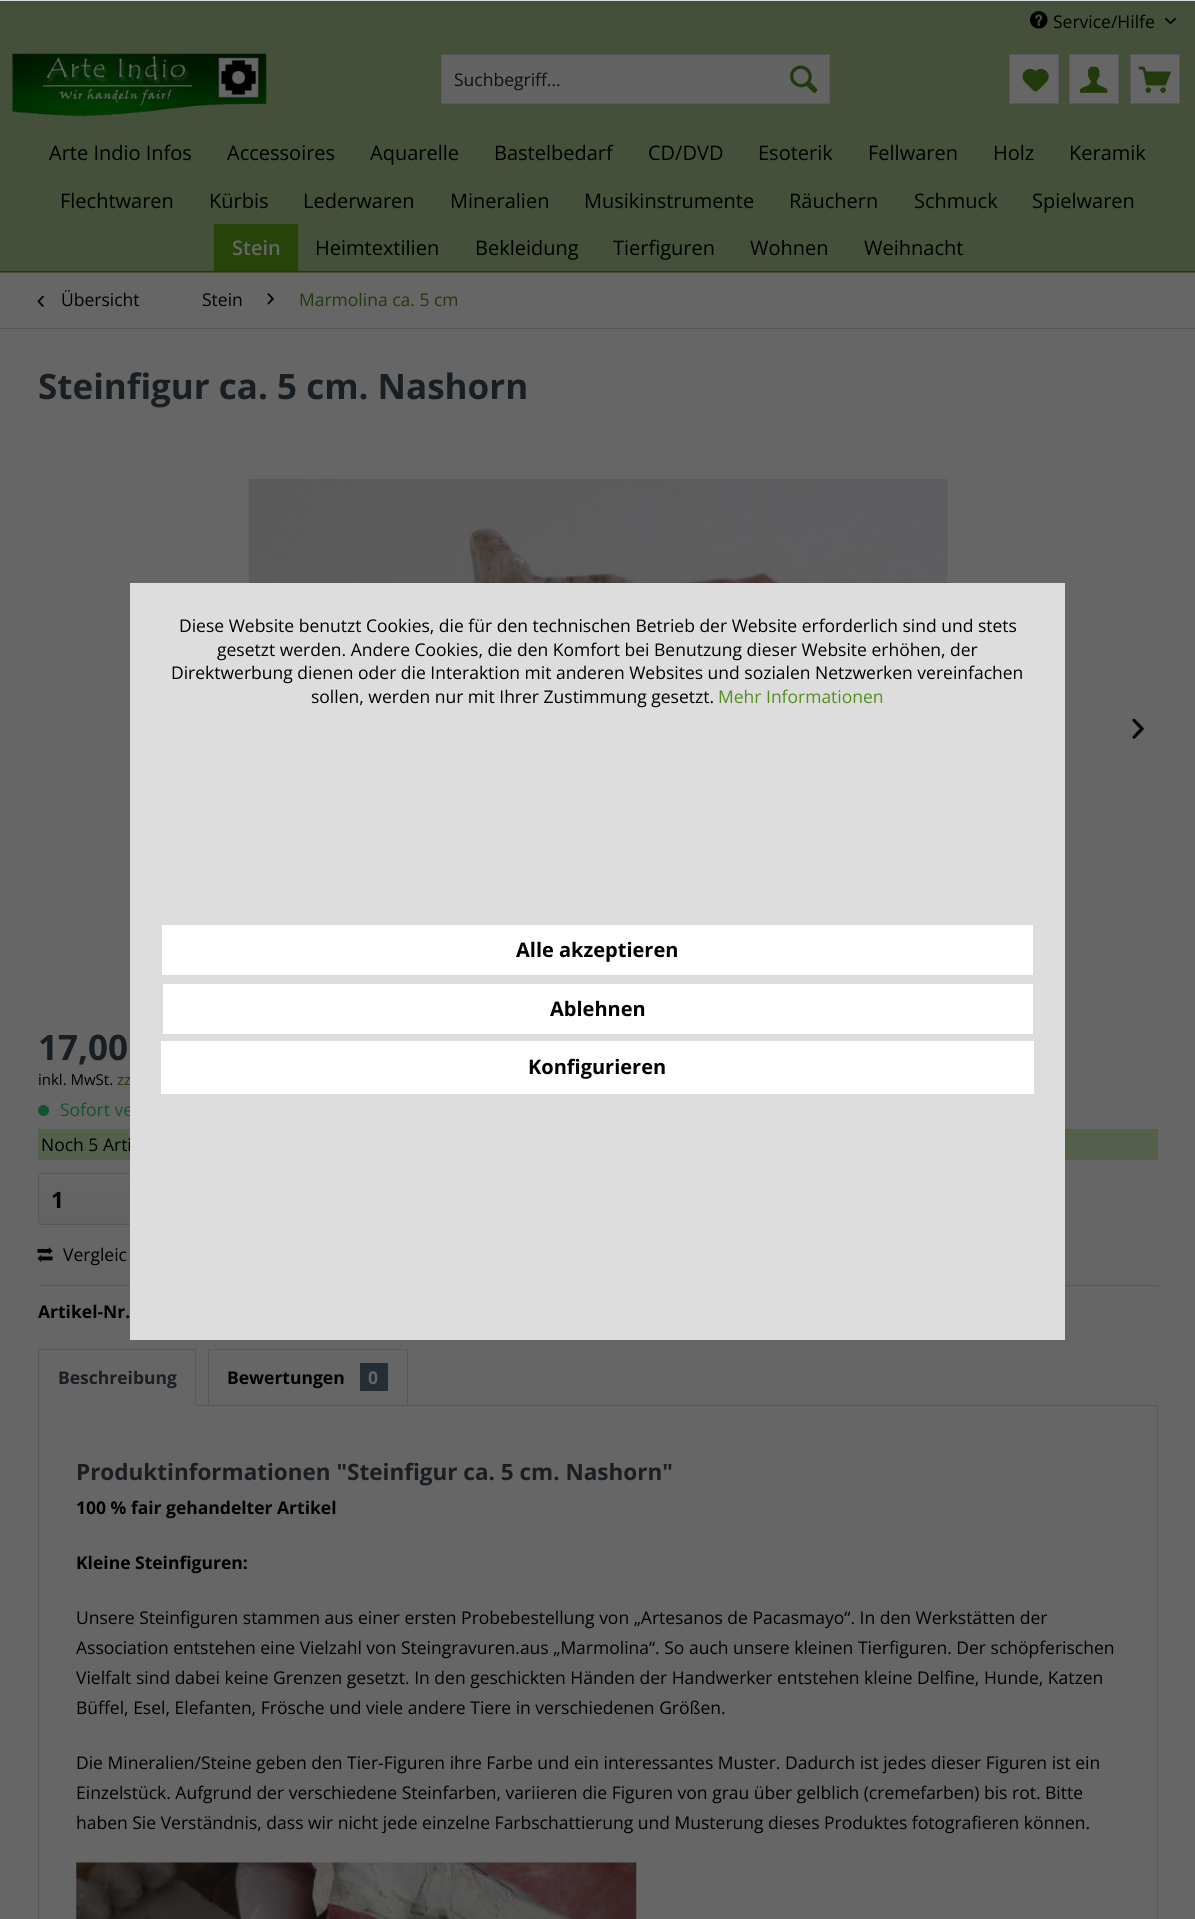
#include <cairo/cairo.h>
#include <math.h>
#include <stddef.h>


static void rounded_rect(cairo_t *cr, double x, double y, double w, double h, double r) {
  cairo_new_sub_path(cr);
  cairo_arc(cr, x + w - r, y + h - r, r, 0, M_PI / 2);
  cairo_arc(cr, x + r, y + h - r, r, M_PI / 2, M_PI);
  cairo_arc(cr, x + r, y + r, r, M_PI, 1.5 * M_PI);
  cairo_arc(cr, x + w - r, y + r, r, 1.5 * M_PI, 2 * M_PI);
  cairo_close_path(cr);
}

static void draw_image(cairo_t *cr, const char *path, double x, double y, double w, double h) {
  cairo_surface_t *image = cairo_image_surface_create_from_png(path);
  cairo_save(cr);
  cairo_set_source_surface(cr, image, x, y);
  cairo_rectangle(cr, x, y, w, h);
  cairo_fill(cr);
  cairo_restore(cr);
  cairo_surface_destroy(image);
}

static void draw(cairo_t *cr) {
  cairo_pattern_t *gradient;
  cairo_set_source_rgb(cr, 102 / 255.0, 102 / 255.0, 102 / 255.0);
  cairo_paint(cr);
  cairo_set_source_rgb(cr, 68 / 255.0, 80 / 255.0, 58 / 255.0);
  cairo_rectangle(cr, 0, 1, 1195, 272);
  cairo_fill(cr);
  draw_image(cr, "images/1.png", 1030, 11, 18, 18);
  draw_image(cr, "images/2.png", 1165, 17, 11, 8);
  draw_image(cr, "images/3.png", 12, 53, 255, 64);
  cairo_set_source_rgb(cr, 99 / 255.0, 99 / 255.0, 100 / 255.0);
  cairo_rectangle(cr, 442, 55, 387, 48);
  cairo_fill(cr);
  cairo_set_source_rgb(cr, 81 / 255.0, 81 / 255.0, 88 / 255.0);
  cairo_rectangle(cr, 441, 54, 389, 1);
  cairo_fill(cr);
  cairo_set_source_rgb(cr, 87 / 255.0, 87 / 255.0, 92 / 255.0);
  cairo_rectangle(cr, 829, 54, 1, 50);
  cairo_fill(cr);
  cairo_rectangle(cr, 441, 103, 389, 1);
  cairo_fill(cr);
  cairo_rectangle(cr, 441, 54, 1, 50);
  cairo_fill(cr);
  draw_image(cr, "images/4.png", 790, 65, 28, 28);
  cairo_set_source_rgb(cr, 102 / 255.0, 102 / 255.0, 102 / 255.0);
  cairo_rectangle(cr, 1009.5, 54.5, 49, 49);
  cairo_fill_preserve(cr);
  cairo_set_source_rgb(cr, 87 / 255.0, 87 / 255.0, 92 / 255.0);
  cairo_set_line_width(cr, 1);
  cairo_stroke(cr);
  draw_image(cr, "images/5.png", 1022, 68, 27, 24);
  cairo_set_source_rgb(cr, 102 / 255.0, 102 / 255.0, 102 / 255.0);
  cairo_rectangle(cr, 1069.5, 54.5, 49, 49);
  cairo_fill_preserve(cr);
  cairo_set_source_rgb(cr, 87 / 255.0, 87 / 255.0, 92 / 255.0);
  cairo_stroke(cr);
  draw_image(cr, "images/6.png", 1080, 66, 28, 27);
  cairo_set_source_rgb(cr, 102 / 255.0, 102 / 255.0, 102 / 255.0);
  cairo_rectangle(cr, 1130.5, 54.5, 49, 49);
  cairo_fill_preserve(cr);
  cairo_set_source_rgb(cr, 87 / 255.0, 87 / 255.0, 92 / 255.0);
  cairo_stroke(cr);
  draw_image(cr, "images/7.png", 1138, 66, 34, 27);
  cairo_set_source_rgb(cr, 33 / 255.0, 57 / 255.0, 11 / 255.0);
  cairo_rectangle(cr, 0, 271, 1195, 1);
  cairo_fill(cr);
  cairo_set_source_rgb(cr, 38 / 255.0, 67 / 255.0, 10 / 255.0);
  cairo_rectangle(cr, 214, 224, 84, 47);
  cairo_fill(cr);
  cairo_set_source_rgb(cr, 87 / 255.0, 87 / 255.0, 92 / 255.0);
  cairo_rectangle(cr, 0, 328, 1195, 1);
  cairo_fill(cr);
  draw_image(cr, "images/8.png", 37, 295, 7, 12);
  draw_image(cr, "images/9.png", 267, 293, 7, 12);
  draw_image(cr, "images/10.png", 248, 479, 700, 104);
  draw_image(cr, "images/11.png", 1132, 718, 12, 21);
  cairo_set_source_rgb(cr, 18 / 255.0, 82 / 255.0, 45 / 255.0);
  cairo_arc(cr, 43.5, 1110.5, 5.5, 0, 2 * M_PI);
  cairo_fill(cr);
  cairo_set_source_rgb(cr, 85 / 255.0, 96 / 255.0, 76 / 255.0);
  cairo_rectangle(cr, 38, 1129, 1120, 31);
  cairo_fill(cr);
  gradient = cairo_pattern_create_linear(194, 1174, 194, 1224);
  cairo_pattern_add_color_stop_rgba(gradient, 0, 102 / 255.0, 102 / 255.0, 102 / 255.0, 1);
  cairo_pattern_add_color_stop_rgba(gradient, 1, 99 / 255.0, 99 / 255.0, 100 / 255.0, 1);
  cairo_set_source(cr, gradient);
  cairo_pattern_destroy(gradient);
  rounded_rect(cr, 39, 1174, 311, 50, 2.5);
  cairo_fill(cr);
  rounded_rect(cr, 38.5, 1173.5, 312, 51, 3.5);
  cairo_set_source_rgb(cr, 87 / 255.0, 87 / 255.0, 92 / 255.0);
  cairo_stroke(cr);
  cairo_rectangle(cr, 38, 1285, 1120, 1);
  cairo_fill(cr);
  draw_image(cr, "images/12.png", 37, 1247, 16, 15);
  cairo_rectangle(cr, 38, 1349, 158, 1);
  cairo_fill(cr);
  cairo_rectangle(cr, 38.5, 1405.5, 1119, 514);
  cairo_stroke(cr);
  cairo_rectangle(cr, 195, 1349, 1, 57);
  cairo_fill(cr);
  cairo_set_source_rgb(cr, 102 / 255.0, 102 / 255.0, 102 / 255.0);
  cairo_rectangle(cr, 38, 1405, 158, 1);
  cairo_fill(cr);
  cairo_set_source_rgb(cr, 87 / 255.0, 87 / 255.0, 92 / 255.0);
  cairo_rectangle(cr, 38, 1349, 1, 57);
  cairo_fill(cr);
  cairo_rectangle(cr, 208.5, 1349.5, 199, 56);
  cairo_stroke(cr);
  cairo_set_source_rgb(cr, 38 / 255.0, 46 / 255.0, 53 / 255.0);
  cairo_rectangle(cr, 360, 1363, 28, 28);
  cairo_fill(cr);
  draw_image(cr, "images/13.png", 76, 1862, 561, 57);
  cairo_set_source_rgb(cr, 218 / 255.0, 218 / 255.0, 229 / 255.0);
  cairo_rectangle(cr, 0, 0, 1195, 1);
  cairo_fill(cr);
  cairo_select_font_face(cr, "Open Sans", CAIRO_FONT_SLANT_NORMAL, CAIRO_FONT_WEIGHT_NORMAL);
  cairo_set_font_size(cr, 17.5);
  cairo_set_source_rgb(cr, 0, 0, 0);
  cairo_move_to(cr, 1053, 28);
  cairo_show_text(cr, "Service/Hilfe");
  cairo_set_source_rgb(cr, 15 / 255.0, 15 / 255.0, 15 / 255.0);
  cairo_move_to(cr, 454, 86);
  cairo_show_text(cr, "Suchbegriff...");
  cairo_set_font_size(cr, 20);
  cairo_set_source_rgb(cr, 0, 0, 0);
  cairo_move_to(cr, 49, 160);
  cairo_show_text(cr, "Arte Indio Infos");
  cairo_move_to(cr, 227, 160);
  cairo_show_text(cr, "Accessoires");
  cairo_move_to(cr, 370, 160);
  cairo_show_text(cr, "Aquarelle");
  cairo_move_to(cr, 494, 160);
  cairo_show_text(cr, "Bastelbedarf");
  cairo_move_to(cr, 648, 160);
  cairo_show_text(cr, "CD/DVD");
  cairo_move_to(cr, 758, 160);
  cairo_show_text(cr, "Esoterik");
  cairo_move_to(cr, 868, 160);
  cairo_show_text(cr, "Fellwaren");
  cairo_move_to(cr, 993, 160);
  cairo_show_text(cr, "Holz");
  cairo_move_to(cr, 1069, 160);
  cairo_show_text(cr, "Keramik");
  cairo_move_to(cr, 60, 208);
  cairo_show_text(cr, "Flechtwaren");
  cairo_move_to(cr, 209, 208);
  cairo_show_text(cr, "Kürbis");
  cairo_move_to(cr, 303, 208);
  cairo_show_text(cr, "Lederwaren");
  cairo_move_to(cr, 450, 208);
  cairo_show_text(cr, "Mineralien");
  cairo_move_to(cr, 584, 208);
  cairo_show_text(cr, "Musikinstrumente");
  cairo_move_to(cr, 789, 208);
  cairo_show_text(cr, "Räuchern");
  cairo_move_to(cr, 914, 208);
  cairo_show_text(cr, "Schmuck");
  cairo_move_to(cr, 1032, 208);
  cairo_show_text(cr, "Spielwaren");
  cairo_select_font_face(cr, "Open Sans SemiBold", CAIRO_FONT_SLANT_NORMAL, CAIRO_FONT_WEIGHT_NORMAL);
  cairo_set_source_rgb(cr, 102 / 255.0, 102 / 255.0, 102 / 255.0);
  cairo_move_to(cr, 232, 255);
  cairo_show_text(cr, "Stein");
  cairo_select_font_face(cr, "Open Sans", CAIRO_FONT_SLANT_NORMAL, CAIRO_FONT_WEIGHT_NORMAL);
  cairo_set_source_rgb(cr, 0, 0, 0);
  cairo_move_to(cr, 315, 255);
  cairo_show_text(cr, "Heimtextilien");
  cairo_move_to(cr, 475, 255);
  cairo_show_text(cr, "Bekleidung");
  cairo_move_to(cr, 613, 255);
  cairo_show_text(cr, "Tierfiguren");
  cairo_move_to(cr, 750, 255);
  cairo_show_text(cr, "Wohnen");
  cairo_move_to(cr, 864, 255);
  cairo_show_text(cr, "Weihnacht");
  cairo_set_font_size(cr, 17.5);
  cairo_move_to(cr, 61, 306);
  cairo_show_text(cr, "Übersicht");
  cairo_move_to(cr, 202, 306);
  cairo_show_text(cr, "Stein");
  cairo_set_source_rgb(cr, 33 / 255.0, 57 / 255.0, 11 / 255.0);
  cairo_move_to(cr, 299, 306);
  cairo_show_text(cr, "Marmolina ca. 5 cm");
  cairo_select_font_face(cr, "Open Sans", CAIRO_FONT_SLANT_NORMAL, CAIRO_FONT_WEIGHT_BOLD);
  cairo_set_font_size(cr, 35);
  cairo_set_source_rgb(cr, 25 / 255.0, 30 / 255.0, 35 / 255.0);
  cairo_move_to(cr, 38, 399);
  cairo_show_text(cr, "Steinfigur ca. 5 cm. Nashorn");
  cairo_move_to(cr, 38, 1060);
  cairo_show_text(cr, "17,00");
  cairo_select_font_face(cr, "Open Sans", CAIRO_FONT_SLANT_NORMAL, CAIRO_FONT_WEIGHT_NORMAL);
  cairo_set_font_size(cr, 15);
  cairo_set_source_rgb(cr, 0, 0, 0);
  cairo_move_to(cr, 38, 1085);
  cairo_show_text(cr, "inkl. MwSt.");
  cairo_set_source_rgb(cr, 33 / 255.0, 57 / 255.0, 11 / 255.0);
  cairo_move_to(cr, 117, 1085);
  cairo_show_text(cr, "zz");
  cairo_set_font_size(cr, 17.5);
  cairo_set_source_rgb(cr, 18 / 255.0, 82 / 255.0, 45 / 255.0);
  cairo_move_to(cr, 60, 1116);
  cairo_show_text(cr, "Sofort ve");
  cairo_set_source_rgb(cr, 0, 0, 0);
  cairo_move_to(cr, 41, 1151);
  cairo_show_text(cr, "Noch 5 Arti");
  cairo_select_font_face(cr, "Open Sans", CAIRO_FONT_SLANT_NORMAL, CAIRO_FONT_WEIGHT_BOLD);
  cairo_set_font_size(cr, 22.5);
  cairo_move_to(cr, 51, 1208);
  cairo_show_text(cr, "1");
  cairo_select_font_face(cr, "Open Sans", CAIRO_FONT_SLANT_NORMAL, CAIRO_FONT_WEIGHT_NORMAL);
  cairo_set_font_size(cr, 17.5);
  cairo_move_to(cr, 63, 1261);
  cairo_show_text(cr, "Vergleic");
  cairo_select_font_face(cr, "Open Sans", CAIRO_FONT_SLANT_NORMAL, CAIRO_FONT_WEIGHT_BOLD);
  cairo_move_to(cr, 38, 1318);
  cairo_show_text(cr, "Artikel-Nr.");
  cairo_set_source_rgb(cr, 25 / 255.0, 30 / 255.0, 35 / 255.0);
  cairo_move_to(cr, 58, 1384);
  cairo_show_text(cr, "Beschreibung");
  cairo_set_source_rgb(cr, 0, 0, 0);
  cairo_move_to(cr, 227, 1384);
  cairo_show_text(cr, "Bewertungen");
  cairo_set_source_rgb(cr, 102 / 255.0, 102 / 255.0, 102 / 255.0);
  cairo_move_to(cr, 368, 1384);
  cairo_show_text(cr, "0");
  cairo_set_font_size(cr, 22.5);
  cairo_set_source_rgb(cr, 25 / 255.0, 30 / 255.0, 35 / 255.0);
  cairo_move_to(cr, 76, 1480);
  cairo_show_text(cr, "Produktinformationen \"Steinfigur ca. 5 cm. Nashorn\"");
  cairo_set_font_size(cr, 17.5);
  cairo_set_source_rgb(cr, 0, 0, 0);
  cairo_move_to(cr, 76, 1514);
  cairo_show_text(cr, "100 % fair gehandelter Artikel");
  cairo_move_to(cr, 76, 1569);
  cairo_show_text(cr, "Kleine Steinfiguren:");
  cairo_select_font_face(cr, "Open Sans", CAIRO_FONT_SLANT_NORMAL, CAIRO_FONT_WEIGHT_NORMAL);
  cairo_move_to(cr, 76, 1624);
  cairo_show_text(cr, "Unsere Steinfiguren stammen aus einer ersten Probebestellung von „Artesanos de Pacasmayo“. In den Werkstätten der");
  cairo_move_to(cr, 76, 1654);
  cairo_show_text(cr, "Association entstehen eine Vielzahl von Steingravuren.aus „Marmolina“. So auch unsere kleinen Tierfiguren. Der schöpferischen");
  cairo_move_to(cr, 76, 1684);
  cairo_show_text(cr, "Vielfalt sind dabei keine Grenzen gesetzt. In den geschickten Händen der Handwerker entstehen kleine Delfine, Hunde, Katzen");
  cairo_move_to(cr, 76, 1714);
  cairo_show_text(cr, "Büffel, Esel, Elefanten, Frösche und viele andere Tiere in verschiedenen Größen.");
  cairo_move_to(cr, 76, 1769);
  cairo_show_text(cr, "Die Mineralien/Steine geben den Tier-Figuren ihre Farbe und ein interessantes Muster. Dadurch ist jedes dieser Figuren ist ein");
  cairo_move_to(cr, 76, 1799);
  cairo_show_text(cr, "Einzelstück. Aufgrund der verschiedene Steinfarben, variieren die Figuren von grau über gelblich (cremefarben) bis rot. Bitte");
  cairo_move_to(cr, 76, 1829);
  cairo_show_text(cr, "haben Sie Verständnis, dass wir nicht jede einzelne Farbschattierung und Musterung dieses Produktes fotografieren können.");
  cairo_set_source_rgb(cr, 221 / 255.0, 221 / 255.0, 221 / 255.0);
  cairo_rectangle(cr, 130, 583, 935, 757);
  cairo_fill(cr);
  cairo_set_source_rgb(cr, 0, 0, 0);
  cairo_move_to(cr, 179, 632);
  cairo_show_text(cr, "Diese Website benutzt Cookies, die für den technischen Betrieb der Website erforderlich sind und stets");
  cairo_move_to(cr, 217, 656);
  cairo_show_text(cr, "gesetzt werden. Andere Cookies, die den Komfort bei Benutzung dieser Website erhöhen, der");
  cairo_move_to(cr, 171, 679);
  cairo_show_text(cr, "Direktwerbung dienen oder die Interaktion mit anderen Websites und sozialen Netzwerken vereinfachen");
  cairo_move_to(cr, 311, 703);
  cairo_show_text(cr, "sollen, werden nur mit Ihrer Zustimmung gesetzt.");
  cairo_set_source_rgb(cr, 82 / 255.0, 142 / 255.0, 27 / 255.0);
  cairo_move_to(cr, 718, 703);
  cairo_show_text(cr, "Mehr Informationen");
  cairo_set_source_rgb(cr, 1, 1, 1);
  cairo_rectangle(cr, 161.5, 924.5, 872, 51);
  cairo_fill_preserve(cr);
  cairo_set_source_rgb(cr, 218 / 255.0, 218 / 255.0, 229 / 255.0);
  cairo_stroke(cr);
  cairo_select_font_face(cr, "Open Sans", CAIRO_FONT_SLANT_NORMAL, CAIRO_FONT_WEIGHT_BOLD);
  cairo_set_font_size(cr, 20);
  cairo_set_source_rgb(cr, 0, 0, 0);
  cairo_move_to(cr, 516, 957);
  cairo_show_text(cr, "Alle akzeptieren");
  cairo_set_source_rgb(cr, 1, 1, 1);
  cairo_rectangle(cr, 163, 984, 870, 50);
  cairo_fill(cr);
  cairo_rectangle(cr, 161.5, 983.5, 872, 51);
  cairo_set_source_rgb(cr, 218 / 255.0, 218 / 255.0, 229 / 255.0);
  cairo_stroke(cr);
  cairo_set_source_rgb(cr, 0, 0, 0);
  cairo_move_to(cr, 550, 1016);
  cairo_show_text(cr, "Ablehnen");
  cairo_set_source_rgb(cr, 1, 1, 1);
  cairo_rectangle(cr, 161, 1041, 873, 53);
  cairo_fill(cr);
  cairo_set_source_rgb(cr, 0, 0, 0);
  cairo_move_to(cr, 528, 1074);
  cairo_show_text(cr, "Konfigurieren");
}

int main(void) {
  cairo_surface_t *surface = cairo_image_surface_create(CAIRO_FORMAT_RGB24, 1195, 1919);
  cairo_t *cr = cairo_create(surface);
  cairo_font_options_t *options = cairo_font_options_create();
  cairo_font_options_set_hint_metrics(options, CAIRO_HINT_METRICS_OFF);
  cairo_font_options_set_hint_style(options, CAIRO_HINT_STYLE_NONE);
  cairo_set_font_options(cr, options);
  cairo_set_miter_limit(cr, 4);
  draw(cr);
  cairo_surface_write_to_png(surface, "out.png");
  cairo_font_options_destroy(options);
  cairo_destroy(cr);
  cairo_surface_destroy(surface);
  return 0;
}
